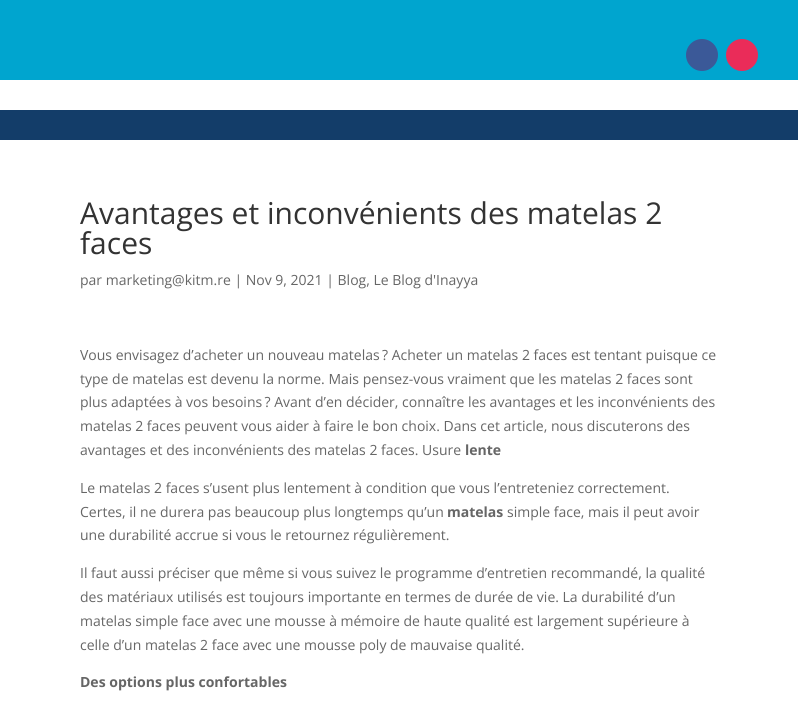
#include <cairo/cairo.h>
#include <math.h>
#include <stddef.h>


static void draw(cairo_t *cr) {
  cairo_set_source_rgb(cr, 1, 1, 1);
  cairo_paint(cr);
  cairo_set_source_rgb(cr, 0, 165 / 255.0, 207 / 255.0);
  cairo_rectangle(cr, 0, 0, 798, 80);
  cairo_fill(cr);
  cairo_set_source_rgb(cr, 59 / 255.0, 89 / 255.0, 152 / 255.0);
  cairo_arc(cr, 702, 55, 16, 0, 2 * M_PI);
  cairo_fill(cr);
  cairo_set_source_rgb(cr, 234 / 255.0, 44 / 255.0, 89 / 255.0);
  cairo_arc(cr, 742, 55, 16, 0, 2 * M_PI);
  cairo_fill(cr);
  cairo_set_source_rgb(cr, 19 / 255.0, 61 / 255.0, 105 / 255.0);
  cairo_rectangle(cr, 0, 110, 798, 30);
  cairo_fill(cr);
  cairo_select_font_face(cr, "Open Sans", CAIRO_FONT_SLANT_NORMAL, CAIRO_FONT_WEIGHT_NORMAL);
  cairo_set_font_size(cr, 30);
  cairo_set_source_rgb(cr, 51 / 255.0, 51 / 255.0, 51 / 255.0);
  cairo_move_to(cr, 80, 224);
  cairo_show_text(cr, "Avantages et inconvénients des matelas 2");
  cairo_move_to(cr, 80, 254);
  cairo_show_text(cr, "faces");
  cairo_set_font_size(cr, 14);
  cairo_set_source_rgb(cr, 102 / 255.0, 102 / 255.0, 102 / 255.0);
  cairo_move_to(cr, 80, 285);
  cairo_show_text(cr, "par marketing@kitm.re | Nov 9, 2021 | Blog, Le Blog d'Inayya");
  cairo_move_to(cr, 80, 360);
  cairo_show_text(cr, "Vous envisagez d’acheter un nouveau matelas ? Acheter un matelas 2 faces est tentant puisque ce");
  cairo_move_to(cr, 80, 384);
  cairo_show_text(cr, "type de matelas est devenu la norme. Mais pensez-vous vraiment que les matelas 2 faces sont");
  cairo_move_to(cr, 80, 407);
  cairo_show_text(cr, "plus adaptées à vos besoins ? Avant d’en décider, connaître les avantages et les inconvénients des");
  cairo_move_to(cr, 80, 431);
  cairo_show_text(cr, "matelas 2 faces peuvent vous aider à faire le bon choix. Dans cet article, nous discuterons des");
  cairo_move_to(cr, 80, 455);
  cairo_show_text(cr, "avantages et des inconvénients des matelas 2 faces. Usure");
  cairo_select_font_face(cr, "Open Sans", CAIRO_FONT_SLANT_NORMAL, CAIRO_FONT_WEIGHT_BOLD);
  cairo_move_to(cr, 465, 455);
  cairo_show_text(cr, "lente");
  cairo_select_font_face(cr, "Open Sans", CAIRO_FONT_SLANT_NORMAL, CAIRO_FONT_WEIGHT_NORMAL);
  cairo_move_to(cr, 80, 493);
  cairo_show_text(cr, "Le matelas 2 faces s’usent plus lentement à condition que vous l’entreteniez correctement.");
  cairo_move_to(cr, 80, 517);
  cairo_show_text(cr, "Certes, il ne durera pas beaucoup plus longtemps qu’un");
  cairo_select_font_face(cr, "Open Sans", CAIRO_FONT_SLANT_NORMAL, CAIRO_FONT_WEIGHT_BOLD);
  cairo_move_to(cr, 447, 517);
  cairo_show_text(cr, "matelas");
  cairo_select_font_face(cr, "Open Sans", CAIRO_FONT_SLANT_NORMAL, CAIRO_FONT_WEIGHT_NORMAL);
  cairo_move_to(cr, 507, 517);
  cairo_show_text(cr, "simple face, mais il peut avoir");
  cairo_move_to(cr, 80, 540);
  cairo_show_text(cr, "une durabilité accrue si vous le retournez régulièrement.");
  cairo_move_to(cr, 80, 578);
  cairo_show_text(cr, "Il faut aussi préciser que même si vous suivez le programme d’entretien recommandé, la qualité");
  cairo_move_to(cr, 80, 602);
  cairo_show_text(cr, "des matériaux utilisés est toujours importante en termes de durée de vie. La durabilité d’un");
  cairo_move_to(cr, 80, 626);
  cairo_show_text(cr, "matelas simple face avec une mousse à mémoire de haute qualité est largement supérieure à");
  cairo_move_to(cr, 80, 650);
  cairo_show_text(cr, "celle d’un matelas 2 face avec une mousse poly de mauvaise qualité.");
  cairo_select_font_face(cr, "Open Sans", CAIRO_FONT_SLANT_NORMAL, CAIRO_FONT_WEIGHT_BOLD);
  cairo_move_to(cr, 80, 687);
  cairo_show_text(cr, "Des options plus confortables");
}

int main(void) {
  cairo_surface_t *surface = cairo_image_surface_create(CAIRO_FORMAT_RGB24, 798, 701);
  cairo_t *cr = cairo_create(surface);
  cairo_font_options_t *options = cairo_font_options_create();
  cairo_font_options_set_hint_metrics(options, CAIRO_HINT_METRICS_OFF);
  cairo_font_options_set_hint_style(options, CAIRO_HINT_STYLE_NONE);
  cairo_set_font_options(cr, options);
  cairo_set_miter_limit(cr, 4);
  draw(cr);
  cairo_surface_write_to_png(surface, "out.png");
  cairo_font_options_destroy(options);
  cairo_destroy(cr);
  cairo_surface_destroy(surface);
  return 0;
}
